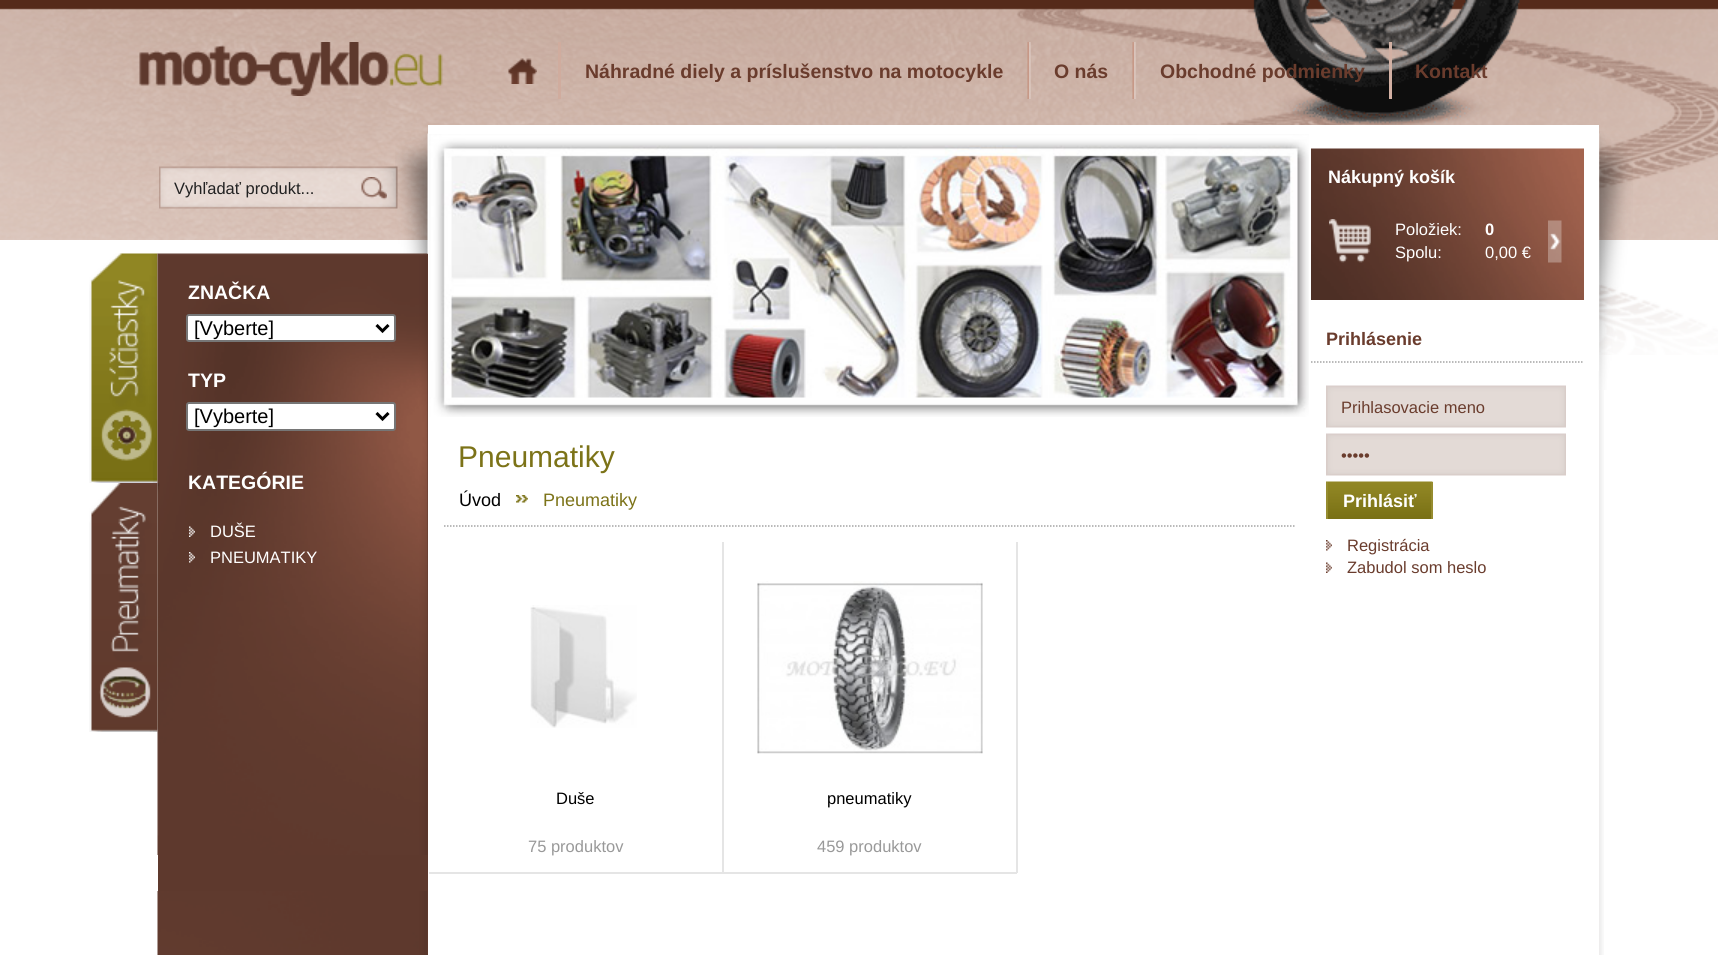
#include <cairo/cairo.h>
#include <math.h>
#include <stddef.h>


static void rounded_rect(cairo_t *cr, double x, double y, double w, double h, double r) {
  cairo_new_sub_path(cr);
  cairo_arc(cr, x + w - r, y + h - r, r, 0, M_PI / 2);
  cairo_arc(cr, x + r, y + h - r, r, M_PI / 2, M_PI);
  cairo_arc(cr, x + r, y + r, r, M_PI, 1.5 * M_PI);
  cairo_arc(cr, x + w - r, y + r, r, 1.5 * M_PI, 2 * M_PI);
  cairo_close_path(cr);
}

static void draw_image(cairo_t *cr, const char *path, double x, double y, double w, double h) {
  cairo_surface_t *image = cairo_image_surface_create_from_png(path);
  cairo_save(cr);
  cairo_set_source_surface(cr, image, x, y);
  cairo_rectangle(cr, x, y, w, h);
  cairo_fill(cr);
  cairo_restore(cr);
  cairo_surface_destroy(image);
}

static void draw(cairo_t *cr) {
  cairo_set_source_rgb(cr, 1, 1, 1);
  cairo_paint(cr);
  draw_image(cr, "images/1.png", 0, 0, 1718, 240);
  draw_image(cr, "images/2.png", 139, 42, 304, 54);
  draw_image(cr, "images/3.png", 508, 58, 29, 26);
  cairo_set_source_rgb(cr, 208 / 255.0, 172 / 255.0, 158 / 255.0);
  cairo_rectangle(cr, 558, 42, 3, 57);
  cairo_fill(cr);
  draw_image(cr, "images/4.png", 1027, 42, 4, 57);
  draw_image(cr, "images/5.png", 1132, 42, 4, 57);
  cairo_set_source_rgb(cr, 210 / 255.0, 176 / 255.0, 163 / 255.0);
  cairo_rectangle(cr, 1389, 42, 3, 57);
  cairo_fill(cr);
  draw_image(cr, "images/6.png", 1599, 240, 119, 115);
  draw_image(cr, "images/7.png", 395, 131, 1238, 259);
  cairo_set_source_rgb(cr, 1, 1, 1);
  cairo_rectangle(cr, 428, 125, 1171, 246);
  cairo_fill(cr);
  draw_image(cr, "images/8.png", 1599, 390, 5, 565);
  draw_image(cr, "images/9.png", 159, 166, 239, 43);
  draw_image(cr, "images/10.png", 361, 177, 26, 23);
  draw_image(cr, "images/11.png", 1311, 148, 273, 152);
  draw_image(cr, "images/12.png", 1329, 219, 42, 44);
  draw_image(cr, "images/13.png", 1548, 220, 14, 43);
  cairo_new_path(cr);
  cairo_move_to(cr, 1311, 362);
  cairo_line_to(cr, 1584, 362);
  cairo_set_source_rgb(cr, 163 / 255.0, 163 / 255.0, 163 / 255.0);
  cairo_set_line_width(cr, 1.5);
  cairo_set_dash(cr, (double[]){1.5, 1.5}, 2, 0);
  cairo_stroke(cr);
  draw_image(cr, "images/14.png", 1326, 385, 240, 43);
  draw_image(cr, "images/14.png", 1326, 433, 240, 43);
  draw_image(cr, "images/15.png", 1326, 481, 107, 38);
  cairo_set_source_rgb(cr, 150 / 255.0, 140 / 255.0, 47 / 255.0);
  cairo_rectangle(cr, 1431, 482, 2, 37);
  cairo_fill(cr);
  cairo_rectangle(cr, 1326, 482, 2, 37);
  cairo_fill(cr);
  draw_image(cr, "images/16.png", 1326, 540, 6, 11);
  draw_image(cr, "images/17.png", 1326, 562, 6, 11);
  draw_image(cr, "images/18.png", 89, 253, 69, 230);
  draw_image(cr, "images/19.png", 89, 483, 69, 249);
  cairo_set_source_rgb(cr, 94 / 255.0, 57 / 255.0, 45 / 255.0);
  cairo_rectangle(cr, 158, 254, 270, 701);
  cairo_fill(cr);
  draw_image(cr, "images/20.png", 157, 253, 271, 602);
  cairo_set_source_rgb(cr, 1, 1, 1);
  rounded_rect(cr, 187, 315, 208, 26, 2);
  cairo_fill_preserve(cr);
  cairo_set_source_rgb(cr, 118 / 255.0, 118 / 255.0, 118 / 255.0);
  cairo_set_line_width(cr, 2);
  cairo_set_dash(cr, NULL, 0, 0);
  cairo_stroke(cr);
  cairo_new_path(cr);
  cairo_move_to(cr, 376.5, 325);
  cairo_line_to(cr, 382.5, 331);
  cairo_line_to(cr, 388.5, 325);
  cairo_set_source_rgb(cr, 0, 0, 0);
  cairo_set_line_width(cr, 3);
  cairo_stroke(cr);
  cairo_set_source_rgb(cr, 1, 1, 1);
  rounded_rect(cr, 187, 403, 208, 27, 2);
  cairo_fill_preserve(cr);
  cairo_set_source_rgb(cr, 118 / 255.0, 118 / 255.0, 118 / 255.0);
  cairo_set_line_width(cr, 2);
  cairo_stroke(cr);
  cairo_new_path(cr);
  cairo_move_to(cr, 376.5, 413);
  cairo_line_to(cr, 382.5, 419);
  cairo_line_to(cr, 388.5, 413);
  cairo_set_source_rgb(cr, 0, 0, 0);
  cairo_set_line_width(cr, 3);
  cairo_stroke(cr);
  draw_image(cr, "images/21.png", 189, 526, 6, 11);
  draw_image(cr, "images/22.png", 189, 552, 6, 11);
  draw_image(cr, "images/23.png", 157, 891, 270, 64);
  draw_image(cr, "images/24.png", 429, 134, 880, 283);
  cairo_new_path(cr);
  cairo_move_to(cr, 444, 526);
  cairo_line_to(cr, 1296, 526);
  cairo_set_source_rgb(cr, 163 / 255.0, 163 / 255.0, 163 / 255.0);
  cairo_set_line_width(cr, 1.5);
  cairo_set_dash(cr, (double[]){1.5, 1.5}, 2, 0);
  cairo_stroke(cr);
  draw_image(cr, "images/25.png", 516, 495, 12, 8);
  cairo_set_source_rgb(cr, 229 / 255.0, 229 / 255.0, 229 / 255.0);
  cairo_rectangle(cr, 722, 542, 2, 331);
  cairo_fill(cr);
  cairo_rectangle(cr, 429, 872, 294, 2);
  cairo_fill(cr);
  draw_image(cr, "images/26.png", 530, 605, 107, 123);
  cairo_rectangle(cr, 1016, 542, 2, 331);
  cairo_fill(cr);
  cairo_rectangle(cr, 723, 872, 294, 2);
  cairo_fill(cr);
  draw_image(cr, "images/27.png", 757, 581, 226, 173);
  cairo_select_font_face(cr, "Liberation Sans", CAIRO_FONT_SLANT_NORMAL, CAIRO_FONT_WEIGHT_BOLD);
  cairo_set_font_size(cr, 19.5);
  cairo_set_source_rgb(cr, 106 / 255.0, 60 / 255.0, 45 / 255.0);
  cairo_move_to(cr, 585, 78);
  cairo_show_text(cr, "Náhradné diely a príslušenstvo na motocykle");
  cairo_move_to(cr, 1054, 78);
  cairo_show_text(cr, "O nás");
  cairo_move_to(cr, 1160, 78);
  cairo_show_text(cr, "Obchodné podmienky");
  cairo_move_to(cr, 1415, 78);
  cairo_show_text(cr, "Kontakt");
  cairo_select_font_face(cr, "Liberation Sans", CAIRO_FONT_SLANT_NORMAL, CAIRO_FONT_WEIGHT_NORMAL);
  cairo_set_font_size(cr, 16.5);
  cairo_set_source_rgb(cr, 34 / 255.0, 34 / 255.0, 34 / 255.0);
  cairo_move_to(cr, 174, 194);
  cairo_show_text(cr, "Vyhľadať produkt...");
  cairo_select_font_face(cr, "Liberation Sans", CAIRO_FONT_SLANT_NORMAL, CAIRO_FONT_WEIGHT_BOLD);
  cairo_set_font_size(cr, 18);
  cairo_set_source_rgb(cr, 1, 1, 1);
  cairo_move_to(cr, 1328, 183);
  cairo_show_text(cr, "Nákupný košík");
  cairo_select_font_face(cr, "Liberation Sans", CAIRO_FONT_SLANT_NORMAL, CAIRO_FONT_WEIGHT_NORMAL);
  cairo_set_font_size(cr, 16.5);
  cairo_move_to(cr, 1395, 235);
  cairo_show_text(cr, "Položiek:");
  cairo_select_font_face(cr, "Liberation Sans", CAIRO_FONT_SLANT_NORMAL, CAIRO_FONT_WEIGHT_BOLD);
  cairo_move_to(cr, 1485, 235);
  cairo_show_text(cr, "0");
  cairo_select_font_face(cr, "Liberation Sans", CAIRO_FONT_SLANT_NORMAL, CAIRO_FONT_WEIGHT_NORMAL);
  cairo_move_to(cr, 1395, 258);
  cairo_show_text(cr, "Spolu:");
  cairo_move_to(cr, 1485, 258);
  cairo_show_text(cr, "0,00 €");
  cairo_select_font_face(cr, "Liberation Sans", CAIRO_FONT_SLANT_NORMAL, CAIRO_FONT_WEIGHT_BOLD);
  cairo_set_font_size(cr, 18);
  cairo_set_source_rgb(cr, 106 / 255.0, 60 / 255.0, 45 / 255.0);
  cairo_move_to(cr, 1326, 345);
  cairo_show_text(cr, "Prihlásenie");
  cairo_select_font_face(cr, "Liberation Sans", CAIRO_FONT_SLANT_NORMAL, CAIRO_FONT_WEIGHT_NORMAL);
  cairo_set_font_size(cr, 16.5);
  cairo_move_to(cr, 1341, 413);
  cairo_show_text(cr, "Prihlasovacie meno");
  cairo_move_to(cr, 1341, 461);
  cairo_show_text(cr, "•••••");
  cairo_select_font_face(cr, "Liberation Sans", CAIRO_FONT_SLANT_NORMAL, CAIRO_FONT_WEIGHT_BOLD);
  cairo_set_font_size(cr, 18);
  cairo_set_source_rgb(cr, 1, 1, 1);
  cairo_move_to(cr, 1343, 507);
  cairo_show_text(cr, "Prihlásiť");
  cairo_select_font_face(cr, "Liberation Sans", CAIRO_FONT_SLANT_NORMAL, CAIRO_FONT_WEIGHT_NORMAL);
  cairo_set_font_size(cr, 16.5);
  cairo_set_source_rgb(cr, 106 / 255.0, 60 / 255.0, 45 / 255.0);
  cairo_move_to(cr, 1347, 551);
  cairo_show_text(cr, "Registrácia");
  cairo_move_to(cr, 1347, 573);
  cairo_show_text(cr, "Zabudol som heslo");
  cairo_select_font_face(cr, "Liberation Sans", CAIRO_FONT_SLANT_NORMAL, CAIRO_FONT_WEIGHT_BOLD);
  cairo_set_font_size(cr, 19.5);
  cairo_set_source_rgb(cr, 1, 1, 1);
  cairo_move_to(cr, 188, 299);
  cairo_show_text(cr, "ZNAČKA");
  cairo_select_font_face(cr, "Liberation Sans", CAIRO_FONT_SLANT_NORMAL, CAIRO_FONT_WEIGHT_NORMAL);
  cairo_set_font_size(cr, 20);
  cairo_set_source_rgb(cr, 0, 0, 0);
  cairo_move_to(cr, 194, 335);
  cairo_show_text(cr, "[Vyberte]");
  cairo_select_font_face(cr, "Liberation Sans", CAIRO_FONT_SLANT_NORMAL, CAIRO_FONT_WEIGHT_BOLD);
  cairo_set_font_size(cr, 19.5);
  cairo_set_source_rgb(cr, 1, 1, 1);
  cairo_move_to(cr, 188, 387);
  cairo_show_text(cr, "TYP");
  cairo_select_font_face(cr, "Liberation Sans", CAIRO_FONT_SLANT_NORMAL, CAIRO_FONT_WEIGHT_NORMAL);
  cairo_set_font_size(cr, 20);
  cairo_set_source_rgb(cr, 0, 0, 0);
  cairo_move_to(cr, 194, 423);
  cairo_show_text(cr, "[Vyberte]");
  cairo_select_font_face(cr, "Liberation Sans", CAIRO_FONT_SLANT_NORMAL, CAIRO_FONT_WEIGHT_BOLD);
  cairo_set_font_size(cr, 19.5);
  cairo_set_source_rgb(cr, 1, 1, 1);
  cairo_move_to(cr, 188, 489);
  cairo_show_text(cr, "KATEGÓRIE");
  cairo_select_font_face(cr, "Liberation Sans", CAIRO_FONT_SLANT_NORMAL, CAIRO_FONT_WEIGHT_NORMAL);
  cairo_set_font_size(cr, 16.5);
  cairo_move_to(cr, 210, 537);
  cairo_show_text(cr, "DUŠE");
  cairo_move_to(cr, 210, 563);
  cairo_show_text(cr, "PNEUMATIKY");
  cairo_set_font_size(cr, 30);
  cairo_set_source_rgb(cr, 124 / 255.0, 115 / 255.0, 24 / 255.0);
  cairo_move_to(cr, 458, 467);
  cairo_show_text(cr, "Pneumatiky");
  cairo_set_font_size(cr, 18);
  cairo_set_source_rgb(cr, 0, 0, 0);
  cairo_move_to(cr, 459, 506);
  cairo_show_text(cr, "Úvod");
  cairo_set_source_rgb(cr, 124 / 255.0, 115 / 255.0, 24 / 255.0);
  cairo_move_to(cr, 543, 506);
  cairo_show_text(cr, "Pneumatiky");
  cairo_set_font_size(cr, 16.5);
  cairo_set_source_rgb(cr, 0, 0, 0);
  cairo_move_to(cr, 556, 804);
  cairo_show_text(cr, "Duše");
  cairo_set_source_rgb(cr, 153 / 255.0, 153 / 255.0, 153 / 255.0);
  cairo_move_to(cr, 528, 852);
  cairo_show_text(cr, "75 produktov");
  cairo_set_source_rgb(cr, 0, 0, 0);
  cairo_move_to(cr, 827, 804);
  cairo_show_text(cr, "pneumatiky");
  cairo_set_source_rgb(cr, 153 / 255.0, 153 / 255.0, 153 / 255.0);
  cairo_move_to(cr, 817, 852);
  cairo_show_text(cr, "459 produktov");
}

int main(void) {
  cairo_surface_t *surface = cairo_image_surface_create(CAIRO_FORMAT_RGB24, 1718, 955);
  cairo_t *cr = cairo_create(surface);
  cairo_font_options_t *options = cairo_font_options_create();
  cairo_font_options_set_hint_metrics(options, CAIRO_HINT_METRICS_OFF);
  cairo_font_options_set_hint_style(options, CAIRO_HINT_STYLE_NONE);
  cairo_set_font_options(cr, options);
  cairo_set_miter_limit(cr, 4);
  draw(cr);
  cairo_surface_write_to_png(surface, "out.png");
  cairo_font_options_destroy(options);
  cairo_destroy(cr);
  cairo_surface_destroy(surface);
  return 0;
}
